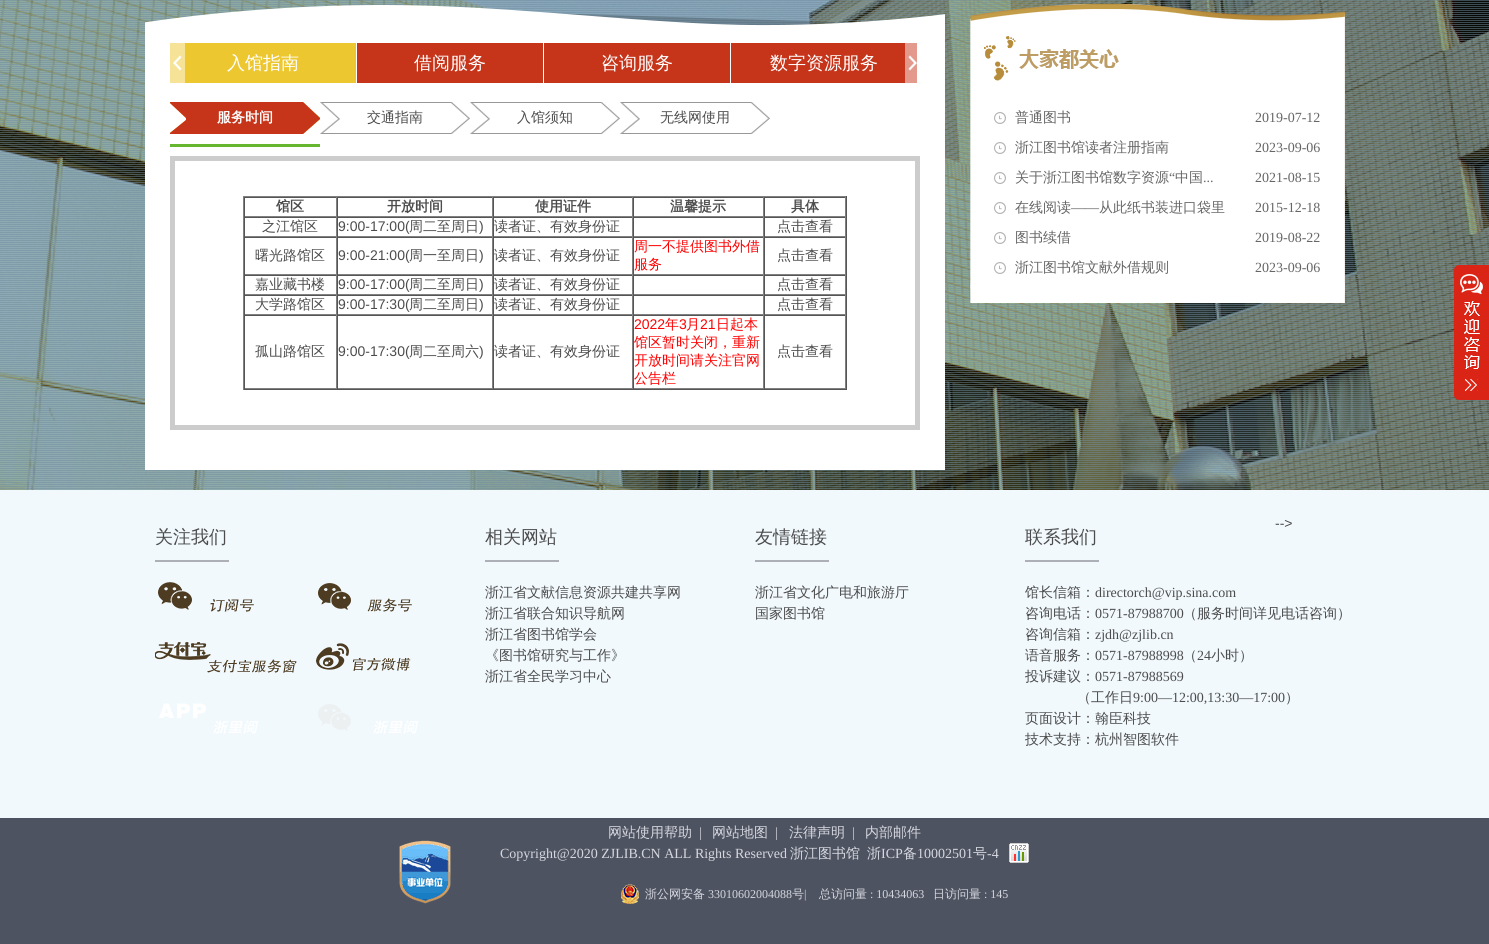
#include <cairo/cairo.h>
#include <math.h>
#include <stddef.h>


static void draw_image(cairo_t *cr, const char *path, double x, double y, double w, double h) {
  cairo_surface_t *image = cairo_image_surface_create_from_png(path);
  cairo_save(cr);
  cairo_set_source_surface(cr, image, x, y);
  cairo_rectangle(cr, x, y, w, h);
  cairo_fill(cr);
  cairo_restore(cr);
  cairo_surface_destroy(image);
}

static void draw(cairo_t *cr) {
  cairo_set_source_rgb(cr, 1, 1, 1);
  cairo_paint(cr);
  draw_image(cr, "images/1.png", 0, 0, 1489, 490);
  draw_image(cr, "images/2.png", 145, 5, 800, 78);
  cairo_set_source_rgb(cr, 237 / 255.0, 199 / 255.0, 47 / 255.0);
  cairo_rectangle(cr, 170, 43, 186, 40);
  cairo_fill(cr);
  draw_image(cr, "images/3.png", 170, 43, 15, 40);
  cairo_set_source_rgb(cr, 198 / 255.0, 52 / 255.0, 26 / 255.0);
  cairo_rectangle(cr, 357, 43, 560, 40);
  cairo_fill(cr);
  cairo_set_source_rgb(cr, 1, 1, 1);
  cairo_rectangle(cr, 543, 43, 1, 40);
  cairo_fill(cr);
  cairo_rectangle(cr, 730, 43, 1, 40);
  cairo_fill(cr);
  draw_image(cr, "images/4.png", 905, 43, 12, 40);
  cairo_rectangle(cr, 145, 83, 800, 387);
  cairo_fill(cr);
  draw_image(cr, "images/5.png", 170, 102, 150, 32);
  cairo_set_source_rgb(cr, 102 / 255.0, 182 / 255.0, 47 / 255.0);
  cairo_rectangle(cr, 170, 144, 150, 3);
  cairo_fill(cr);
  draw_image(cr, "images/6.png", 320, 102, 150, 32);
  draw_image(cr, "images/6.png", 470, 102, 150, 32);
  draw_image(cr, "images/6.png", 620, 102, 150, 32);
  cairo_rectangle(cr, 172.5, 158.5, 745, 269);
  cairo_set_source_rgb(cr, 204 / 255.0, 204 / 255.0, 204 / 255.0);
  cairo_set_line_width(cr, 5);
  cairo_stroke(cr);
  cairo_set_source_rgb(cr, 128 / 255.0, 128 / 255.0, 128 / 255.0);
  cairo_rectangle(cr, 243, 196, 604, 1);
  cairo_fill(cr);
  cairo_set_source_rgb(cr, 85 / 255.0, 85 / 255.0, 85 / 255.0);
  cairo_rectangle(cr, 846, 196, 1, 194);
  cairo_fill(cr);
  cairo_rectangle(cr, 243, 389, 604, 1);
  cairo_fill(cr);
  cairo_set_source_rgb(cr, 128 / 255.0, 128 / 255.0, 128 / 255.0);
  cairo_rectangle(cr, 243, 196, 1, 194);
  cairo_fill(cr);
  cairo_set_source_rgb(cr, 85 / 255.0, 85 / 255.0, 85 / 255.0);
  cairo_rectangle(cr, 244, 197, 602, 1);
  cairo_fill(cr);
  cairo_set_source_rgb(cr, 128 / 255.0, 128 / 255.0, 128 / 255.0);
  cairo_rectangle(cr, 336, 197, 1, 20);
  cairo_fill(cr);
  cairo_rectangle(cr, 244, 216, 93, 1);
  cairo_fill(cr);
  cairo_set_source_rgb(cr, 85 / 255.0, 85 / 255.0, 85 / 255.0);
  cairo_rectangle(cr, 244, 197, 1, 20);
  cairo_fill(cr);
  cairo_set_source_rgb(cr, 128 / 255.0, 128 / 255.0, 128 / 255.0);
  cairo_rectangle(cr, 492, 197, 1, 20);
  cairo_fill(cr);
  cairo_rectangle(cr, 337, 216, 156, 1);
  cairo_fill(cr);
  cairo_set_source_rgb(cr, 85 / 255.0, 85 / 255.0, 85 / 255.0);
  cairo_rectangle(cr, 337, 197, 1, 20);
  cairo_fill(cr);
  cairo_set_source_rgb(cr, 128 / 255.0, 128 / 255.0, 128 / 255.0);
  cairo_rectangle(cr, 632, 197, 1, 20);
  cairo_fill(cr);
  cairo_rectangle(cr, 493, 216, 140, 1);
  cairo_fill(cr);
  cairo_set_source_rgb(cr, 85 / 255.0, 85 / 255.0, 85 / 255.0);
  cairo_rectangle(cr, 493, 197, 1, 20);
  cairo_fill(cr);
  cairo_set_source_rgb(cr, 128 / 255.0, 128 / 255.0, 128 / 255.0);
  cairo_rectangle(cr, 763, 197, 1, 20);
  cairo_fill(cr);
  cairo_rectangle(cr, 633, 216, 131, 1);
  cairo_fill(cr);
  cairo_set_source_rgb(cr, 85 / 255.0, 85 / 255.0, 85 / 255.0);
  cairo_rectangle(cr, 633, 197, 1, 20);
  cairo_fill(cr);
  cairo_set_source_rgb(cr, 128 / 255.0, 128 / 255.0, 128 / 255.0);
  cairo_rectangle(cr, 845, 197, 1, 20);
  cairo_fill(cr);
  cairo_rectangle(cr, 764, 216, 82, 1);
  cairo_fill(cr);
  cairo_set_source_rgb(cr, 85 / 255.0, 85 / 255.0, 85 / 255.0);
  cairo_rectangle(cr, 764, 197, 1, 20);
  cairo_fill(cr);
  cairo_rectangle(cr, 244, 217, 602, 1);
  cairo_fill(cr);
  cairo_set_source_rgb(cr, 128 / 255.0, 128 / 255.0, 128 / 255.0);
  cairo_rectangle(cr, 336, 217, 1, 20);
  cairo_fill(cr);
  cairo_rectangle(cr, 244, 236, 93, 1);
  cairo_fill(cr);
  cairo_set_source_rgb(cr, 85 / 255.0, 85 / 255.0, 85 / 255.0);
  cairo_rectangle(cr, 244, 217, 1, 20);
  cairo_fill(cr);
  cairo_set_source_rgb(cr, 128 / 255.0, 128 / 255.0, 128 / 255.0);
  cairo_rectangle(cr, 492, 217, 1, 20);
  cairo_fill(cr);
  cairo_rectangle(cr, 337, 236, 156, 1);
  cairo_fill(cr);
  cairo_set_source_rgb(cr, 85 / 255.0, 85 / 255.0, 85 / 255.0);
  cairo_rectangle(cr, 337, 217, 1, 20);
  cairo_fill(cr);
  cairo_set_source_rgb(cr, 128 / 255.0, 128 / 255.0, 128 / 255.0);
  cairo_rectangle(cr, 632, 217, 1, 20);
  cairo_fill(cr);
  cairo_rectangle(cr, 493, 236, 140, 1);
  cairo_fill(cr);
  cairo_set_source_rgb(cr, 85 / 255.0, 85 / 255.0, 85 / 255.0);
  cairo_rectangle(cr, 493, 217, 1, 20);
  cairo_fill(cr);
  cairo_set_source_rgb(cr, 128 / 255.0, 128 / 255.0, 128 / 255.0);
  cairo_rectangle(cr, 763, 217, 1, 20);
  cairo_fill(cr);
  cairo_rectangle(cr, 633, 236, 131, 1);
  cairo_fill(cr);
  cairo_set_source_rgb(cr, 85 / 255.0, 85 / 255.0, 85 / 255.0);
  cairo_rectangle(cr, 633, 217, 1, 20);
  cairo_fill(cr);
  cairo_set_source_rgb(cr, 128 / 255.0, 128 / 255.0, 128 / 255.0);
  cairo_rectangle(cr, 845, 217, 1, 20);
  cairo_fill(cr);
  cairo_rectangle(cr, 764, 236, 82, 1);
  cairo_fill(cr);
  cairo_set_source_rgb(cr, 85 / 255.0, 85 / 255.0, 85 / 255.0);
  cairo_rectangle(cr, 764, 217, 1, 20);
  cairo_fill(cr);
  cairo_rectangle(cr, 244, 237, 602, 1);
  cairo_fill(cr);
  cairo_set_source_rgb(cr, 128 / 255.0, 128 / 255.0, 128 / 255.0);
  cairo_rectangle(cr, 336, 237, 1, 38);
  cairo_fill(cr);
  cairo_rectangle(cr, 244, 274, 93, 1);
  cairo_fill(cr);
  cairo_set_source_rgb(cr, 85 / 255.0, 85 / 255.0, 85 / 255.0);
  cairo_rectangle(cr, 244, 237, 1, 38);
  cairo_fill(cr);
  cairo_set_source_rgb(cr, 128 / 255.0, 128 / 255.0, 128 / 255.0);
  cairo_rectangle(cr, 492, 237, 1, 38);
  cairo_fill(cr);
  cairo_rectangle(cr, 337, 274, 156, 1);
  cairo_fill(cr);
  cairo_set_source_rgb(cr, 85 / 255.0, 85 / 255.0, 85 / 255.0);
  cairo_rectangle(cr, 337, 237, 1, 38);
  cairo_fill(cr);
  cairo_set_source_rgb(cr, 128 / 255.0, 128 / 255.0, 128 / 255.0);
  cairo_rectangle(cr, 632, 237, 1, 38);
  cairo_fill(cr);
  cairo_rectangle(cr, 493, 274, 140, 1);
  cairo_fill(cr);
  cairo_set_source_rgb(cr, 85 / 255.0, 85 / 255.0, 85 / 255.0);
  cairo_rectangle(cr, 493, 237, 1, 38);
  cairo_fill(cr);
  cairo_set_source_rgb(cr, 128 / 255.0, 128 / 255.0, 128 / 255.0);
  cairo_rectangle(cr, 763, 237, 1, 38);
  cairo_fill(cr);
  cairo_rectangle(cr, 633, 274, 131, 1);
  cairo_fill(cr);
  cairo_set_source_rgb(cr, 85 / 255.0, 85 / 255.0, 85 / 255.0);
  cairo_rectangle(cr, 633, 237, 1, 38);
  cairo_fill(cr);
  cairo_set_source_rgb(cr, 128 / 255.0, 128 / 255.0, 128 / 255.0);
  cairo_rectangle(cr, 845, 237, 1, 38);
  cairo_fill(cr);
  cairo_rectangle(cr, 764, 274, 82, 1);
  cairo_fill(cr);
  cairo_set_source_rgb(cr, 85 / 255.0, 85 / 255.0, 85 / 255.0);
  cairo_rectangle(cr, 764, 237, 1, 38);
  cairo_fill(cr);
  cairo_rectangle(cr, 244, 275, 602, 1);
  cairo_fill(cr);
  cairo_set_source_rgb(cr, 128 / 255.0, 128 / 255.0, 128 / 255.0);
  cairo_rectangle(cr, 336, 275, 1, 20);
  cairo_fill(cr);
  cairo_rectangle(cr, 244, 294, 93, 1);
  cairo_fill(cr);
  cairo_set_source_rgb(cr, 85 / 255.0, 85 / 255.0, 85 / 255.0);
  cairo_rectangle(cr, 244, 275, 1, 20);
  cairo_fill(cr);
  cairo_set_source_rgb(cr, 128 / 255.0, 128 / 255.0, 128 / 255.0);
  cairo_rectangle(cr, 492, 275, 1, 20);
  cairo_fill(cr);
  cairo_rectangle(cr, 337, 294, 156, 1);
  cairo_fill(cr);
  cairo_set_source_rgb(cr, 85 / 255.0, 85 / 255.0, 85 / 255.0);
  cairo_rectangle(cr, 337, 275, 1, 20);
  cairo_fill(cr);
  cairo_set_source_rgb(cr, 128 / 255.0, 128 / 255.0, 128 / 255.0);
  cairo_rectangle(cr, 632, 275, 1, 20);
  cairo_fill(cr);
  cairo_rectangle(cr, 493, 294, 140, 1);
  cairo_fill(cr);
  cairo_set_source_rgb(cr, 85 / 255.0, 85 / 255.0, 85 / 255.0);
  cairo_rectangle(cr, 493, 275, 1, 20);
  cairo_fill(cr);
  cairo_set_source_rgb(cr, 128 / 255.0, 128 / 255.0, 128 / 255.0);
  cairo_rectangle(cr, 763, 275, 1, 20);
  cairo_fill(cr);
  cairo_rectangle(cr, 633, 294, 131, 1);
  cairo_fill(cr);
  cairo_set_source_rgb(cr, 85 / 255.0, 85 / 255.0, 85 / 255.0);
  cairo_rectangle(cr, 633, 275, 1, 20);
  cairo_fill(cr);
  cairo_set_source_rgb(cr, 128 / 255.0, 128 / 255.0, 128 / 255.0);
  cairo_rectangle(cr, 845, 275, 1, 20);
  cairo_fill(cr);
  cairo_rectangle(cr, 764, 294, 82, 1);
  cairo_fill(cr);
  cairo_set_source_rgb(cr, 85 / 255.0, 85 / 255.0, 85 / 255.0);
  cairo_rectangle(cr, 764, 275, 1, 20);
  cairo_fill(cr);
  cairo_rectangle(cr, 244, 295, 602, 1);
  cairo_fill(cr);
  cairo_set_source_rgb(cr, 128 / 255.0, 128 / 255.0, 128 / 255.0);
  cairo_rectangle(cr, 336, 295, 1, 20);
  cairo_fill(cr);
  cairo_rectangle(cr, 244, 314, 93, 1);
  cairo_fill(cr);
  cairo_set_source_rgb(cr, 85 / 255.0, 85 / 255.0, 85 / 255.0);
  cairo_rectangle(cr, 244, 295, 1, 20);
  cairo_fill(cr);
  cairo_set_source_rgb(cr, 128 / 255.0, 128 / 255.0, 128 / 255.0);
  cairo_rectangle(cr, 492, 295, 1, 20);
  cairo_fill(cr);
  cairo_rectangle(cr, 337, 314, 156, 1);
  cairo_fill(cr);
  cairo_set_source_rgb(cr, 85 / 255.0, 85 / 255.0, 85 / 255.0);
  cairo_rectangle(cr, 337, 295, 1, 20);
  cairo_fill(cr);
  cairo_set_source_rgb(cr, 128 / 255.0, 128 / 255.0, 128 / 255.0);
  cairo_rectangle(cr, 632, 295, 1, 20);
  cairo_fill(cr);
  cairo_rectangle(cr, 493, 314, 140, 1);
  cairo_fill(cr);
  cairo_set_source_rgb(cr, 85 / 255.0, 85 / 255.0, 85 / 255.0);
  cairo_rectangle(cr, 493, 295, 1, 20);
  cairo_fill(cr);
  cairo_set_source_rgb(cr, 128 / 255.0, 128 / 255.0, 128 / 255.0);
  cairo_rectangle(cr, 763, 295, 1, 20);
  cairo_fill(cr);
  cairo_rectangle(cr, 633, 314, 131, 1);
  cairo_fill(cr);
  cairo_set_source_rgb(cr, 85 / 255.0, 85 / 255.0, 85 / 255.0);
  cairo_rectangle(cr, 633, 295, 1, 20);
  cairo_fill(cr);
  cairo_set_source_rgb(cr, 128 / 255.0, 128 / 255.0, 128 / 255.0);
  cairo_rectangle(cr, 845, 295, 1, 20);
  cairo_fill(cr);
  cairo_rectangle(cr, 764, 314, 82, 1);
  cairo_fill(cr);
  cairo_set_source_rgb(cr, 85 / 255.0, 85 / 255.0, 85 / 255.0);
  cairo_rectangle(cr, 764, 295, 1, 20);
  cairo_fill(cr);
  cairo_rectangle(cr, 244, 315, 602, 1);
  cairo_fill(cr);
  cairo_set_source_rgb(cr, 128 / 255.0, 128 / 255.0, 128 / 255.0);
  cairo_rectangle(cr, 336, 315, 1, 74);
  cairo_fill(cr);
  cairo_rectangle(cr, 244, 388, 93, 1);
  cairo_fill(cr);
  cairo_set_source_rgb(cr, 85 / 255.0, 85 / 255.0, 85 / 255.0);
  cairo_rectangle(cr, 244, 315, 1, 74);
  cairo_fill(cr);
  cairo_set_source_rgb(cr, 128 / 255.0, 128 / 255.0, 128 / 255.0);
  cairo_rectangle(cr, 492, 315, 1, 74);
  cairo_fill(cr);
  cairo_rectangle(cr, 337, 388, 156, 1);
  cairo_fill(cr);
  cairo_set_source_rgb(cr, 85 / 255.0, 85 / 255.0, 85 / 255.0);
  cairo_rectangle(cr, 337, 315, 1, 74);
  cairo_fill(cr);
  cairo_set_source_rgb(cr, 128 / 255.0, 128 / 255.0, 128 / 255.0);
  cairo_rectangle(cr, 632, 315, 1, 74);
  cairo_fill(cr);
  cairo_rectangle(cr, 493, 388, 140, 1);
  cairo_fill(cr);
  cairo_set_source_rgb(cr, 85 / 255.0, 85 / 255.0, 85 / 255.0);
  cairo_rectangle(cr, 493, 315, 1, 74);
  cairo_fill(cr);
  cairo_set_source_rgb(cr, 128 / 255.0, 128 / 255.0, 128 / 255.0);
  cairo_rectangle(cr, 763, 315, 1, 74);
  cairo_fill(cr);
  cairo_rectangle(cr, 633, 388, 131, 1);
  cairo_fill(cr);
  cairo_set_source_rgb(cr, 85 / 255.0, 85 / 255.0, 85 / 255.0);
  cairo_rectangle(cr, 633, 315, 1, 74);
  cairo_fill(cr);
  cairo_set_source_rgb(cr, 128 / 255.0, 128 / 255.0, 128 / 255.0);
  cairo_rectangle(cr, 845, 315, 1, 74);
  cairo_fill(cr);
  cairo_rectangle(cr, 764, 388, 82, 1);
  cairo_fill(cr);
  cairo_set_source_rgb(cr, 85 / 255.0, 85 / 255.0, 85 / 255.0);
  cairo_rectangle(cr, 764, 315, 1, 74);
  cairo_fill(cr);
  draw_image(cr, "images/7.png", 970, 4, 375, 299);
  draw_image(cr, "images/8.png", 994, 112, 12, 12);
  draw_image(cr, "images/8.png", 994, 142, 12, 12);
  draw_image(cr, "images/8.png", 994, 172, 12, 12);
  draw_image(cr, "images/8.png", 994, 202, 12, 12);
  draw_image(cr, "images/8.png", 994, 232, 12, 12);
  draw_image(cr, "images/8.png", 994, 262, 12, 12);
  draw_image(cr, "images/9.png", 1454, 265, 35, 135);
  cairo_set_source_rgb(cr, 241 / 255.0, 249 / 255.0, 253 / 255.0);
  cairo_rectangle(cr, 0, 490, 1489, 328);
  cairo_fill(cr);
  cairo_set_source_rgb(cr, 174 / 255.0, 176 / 255.0, 183 / 255.0);
  cairo_rectangle(cr, 155, 560, 74, 2);
  cairo_fill(cr);
  draw_image(cr, "images/10.png", 158, 582, 96, 30);
  draw_image(cr, "images/11.png", 318, 583, 94, 29);
  draw_image(cr, "images/12.png", 155, 642, 142, 31);
  draw_image(cr, "images/13.png", 316, 643, 95, 28);
  draw_image(cr, "images/14.png", 159, 703, 99, 31);
  draw_image(cr, "images/15.png", 318, 704, 100, 30);
  cairo_rectangle(cr, 485, 560, 74, 2);
  cairo_fill(cr);
  cairo_rectangle(cr, 755, 560, 74, 2);
  cairo_fill(cr);
  cairo_rectangle(cr, 1025, 560, 74, 2);
  cairo_fill(cr);
  cairo_set_source_rgb(cr, 78 / 255.0, 83 / 255.0, 97 / 255.0);
  cairo_rectangle(cr, 0, 818, 1489, 126);
  cairo_fill(cr);
  draw_image(cr, "images/16.png", 399, 840, 52, 64);
  draw_image(cr, "images/17.png", 1009, 843, 20, 20);
  draw_image(cr, "images/18.png", 621, 884, 18, 20);
  cairo_select_font_face(cr, "WenQuanYi Zen Hei Medium", CAIRO_FONT_SLANT_NORMAL, CAIRO_FONT_WEIGHT_NORMAL);
  cairo_set_font_size(cr, 18);
  cairo_set_source_rgb(cr, 1, 1, 1);
  cairo_move_to(cr, 227, 69);
  cairo_show_text(cr, "入馆指南");
  cairo_move_to(cr, 414, 69);
  cairo_show_text(cr, "借阅服务");
  cairo_move_to(cr, 601, 69);
  cairo_show_text(cr, "咨询服务");
  cairo_move_to(cr, 770, 69);
  cairo_show_text(cr, "数字资源服务");
  cairo_select_font_face(cr, "WenQuanYi Zen Hei", CAIRO_FONT_SLANT_NORMAL, CAIRO_FONT_WEIGHT_BOLD);
  cairo_set_font_size(cr, 14);
  cairo_move_to(cr, 217, 122);
  cairo_show_text(cr, "服务时间");
  cairo_select_font_face(cr, "WenQuanYi Zen Hei Medium", CAIRO_FONT_SLANT_NORMAL, CAIRO_FONT_WEIGHT_NORMAL);
  cairo_set_source_rgb(cr, 76 / 255.0, 76 / 255.0, 76 / 255.0);
  cairo_move_to(cr, 367, 122);
  cairo_show_text(cr, "交通指南");
  cairo_move_to(cr, 517, 122);
  cairo_show_text(cr, "入馆须知");
  cairo_move_to(cr, 660, 122);
  cairo_show_text(cr, "无线网使用");
  cairo_select_font_face(cr, "WenQuanYi Zen Hei", CAIRO_FONT_SLANT_NORMAL, CAIRO_FONT_WEIGHT_BOLD);
  cairo_move_to(cr, 276, 211);
  cairo_show_text(cr, "馆区");
  cairo_move_to(cr, 387, 211);
  cairo_show_text(cr, "开放时间");
  cairo_move_to(cr, 535, 211);
  cairo_show_text(cr, "使用证件");
  cairo_move_to(cr, 670, 211);
  cairo_show_text(cr, "温馨提示");
  cairo_move_to(cr, 791, 211);
  cairo_show_text(cr, "具体");
  cairo_select_font_face(cr, "WenQuanYi Zen Hei Medium", CAIRO_FONT_SLANT_NORMAL, CAIRO_FONT_WEIGHT_NORMAL);
  cairo_move_to(cr, 262, 231);
  cairo_show_text(cr, "之江馆区");
  cairo_select_font_face(cr, "Liberation Sans", CAIRO_FONT_SLANT_NORMAL, CAIRO_FONT_WEIGHT_NORMAL);
  cairo_move_to(cr, 338, 231);
  cairo_show_text(cr, "9:00-17:00(");
  cairo_select_font_face(cr, "WenQuanYi Zen Hei Medium", CAIRO_FONT_SLANT_NORMAL, CAIRO_FONT_WEIGHT_NORMAL);
  cairo_move_to(cr, 409, 231);
  cairo_show_text(cr, "周二至周日");
  cairo_select_font_face(cr, "Liberation Sans", CAIRO_FONT_SLANT_NORMAL, CAIRO_FONT_WEIGHT_NORMAL);
  cairo_move_to(cr, 479, 231);
  cairo_show_text(cr, ")");
  cairo_select_font_face(cr, "WenQuanYi Zen Hei Medium", CAIRO_FONT_SLANT_NORMAL, CAIRO_FONT_WEIGHT_NORMAL);
  cairo_move_to(cr, 494, 231);
  cairo_show_text(cr, "读者证、有效身份证");
  cairo_move_to(cr, 777, 231);
  cairo_show_text(cr, "点击查看");
  cairo_move_to(cr, 255, 260);
  cairo_show_text(cr, "曙光路馆区");
  cairo_select_font_face(cr, "Liberation Sans", CAIRO_FONT_SLANT_NORMAL, CAIRO_FONT_WEIGHT_NORMAL);
  cairo_move_to(cr, 338, 260);
  cairo_show_text(cr, "9:00-21:00(");
  cairo_select_font_face(cr, "WenQuanYi Zen Hei Medium", CAIRO_FONT_SLANT_NORMAL, CAIRO_FONT_WEIGHT_NORMAL);
  cairo_move_to(cr, 409, 260);
  cairo_show_text(cr, "周一至周日");
  cairo_select_font_face(cr, "Liberation Sans", CAIRO_FONT_SLANT_NORMAL, CAIRO_FONT_WEIGHT_NORMAL);
  cairo_move_to(cr, 479, 260);
  cairo_show_text(cr, ")");
  cairo_select_font_face(cr, "WenQuanYi Zen Hei Medium", CAIRO_FONT_SLANT_NORMAL, CAIRO_FONT_WEIGHT_NORMAL);
  cairo_move_to(cr, 494, 260);
  cairo_show_text(cr, "读者证、有效身份证");
  cairo_set_source_rgb(cr, 1, 0, 0);
  cairo_move_to(cr, 634, 251);
  cairo_show_text(cr, "周一不提供图书外借");
  cairo_move_to(cr, 634, 269);
  cairo_show_text(cr, "服务");
  cairo_set_source_rgb(cr, 76 / 255.0, 76 / 255.0, 76 / 255.0);
  cairo_move_to(cr, 777, 260);
  cairo_show_text(cr, "点击查看");
  cairo_move_to(cr, 255, 289);
  cairo_show_text(cr, "嘉业藏书楼");
  cairo_select_font_face(cr, "Liberation Sans", CAIRO_FONT_SLANT_NORMAL, CAIRO_FONT_WEIGHT_NORMAL);
  cairo_move_to(cr, 338, 289);
  cairo_show_text(cr, "9:00-17:00(");
  cairo_select_font_face(cr, "WenQuanYi Zen Hei Medium", CAIRO_FONT_SLANT_NORMAL, CAIRO_FONT_WEIGHT_NORMAL);
  cairo_move_to(cr, 409, 289);
  cairo_show_text(cr, "周二至周日");
  cairo_select_font_face(cr, "Liberation Sans", CAIRO_FONT_SLANT_NORMAL, CAIRO_FONT_WEIGHT_NORMAL);
  cairo_move_to(cr, 479, 289);
  cairo_show_text(cr, ")");
  cairo_select_font_face(cr, "WenQuanYi Zen Hei Medium", CAIRO_FONT_SLANT_NORMAL, CAIRO_FONT_WEIGHT_NORMAL);
  cairo_move_to(cr, 494, 289);
  cairo_show_text(cr, "读者证、有效身份证");
  cairo_move_to(cr, 777, 289);
  cairo_show_text(cr, "点击查看");
  cairo_move_to(cr, 255, 309);
  cairo_show_text(cr, "大学路馆区");
  cairo_select_font_face(cr, "Liberation Sans", CAIRO_FONT_SLANT_NORMAL, CAIRO_FONT_WEIGHT_NORMAL);
  cairo_move_to(cr, 338, 309);
  cairo_show_text(cr, "9:00-17:30(");
  cairo_select_font_face(cr, "WenQuanYi Zen Hei Medium", CAIRO_FONT_SLANT_NORMAL, CAIRO_FONT_WEIGHT_NORMAL);
  cairo_move_to(cr, 409, 309);
  cairo_show_text(cr, "周二至周日");
  cairo_select_font_face(cr, "Liberation Sans", CAIRO_FONT_SLANT_NORMAL, CAIRO_FONT_WEIGHT_NORMAL);
  cairo_move_to(cr, 479, 309);
  cairo_show_text(cr, ")");
  cairo_select_font_face(cr, "WenQuanYi Zen Hei Medium", CAIRO_FONT_SLANT_NORMAL, CAIRO_FONT_WEIGHT_NORMAL);
  cairo_move_to(cr, 494, 309);
  cairo_show_text(cr, "读者证、有效身份证");
  cairo_move_to(cr, 777, 309);
  cairo_show_text(cr, "点击查看");
  cairo_move_to(cr, 255, 356);
  cairo_show_text(cr, "孤山路馆区");
  cairo_select_font_face(cr, "Liberation Sans", CAIRO_FONT_SLANT_NORMAL, CAIRO_FONT_WEIGHT_NORMAL);
  cairo_move_to(cr, 338, 356);
  cairo_show_text(cr, "9:00-17:30(");
  cairo_select_font_face(cr, "WenQuanYi Zen Hei Medium", CAIRO_FONT_SLANT_NORMAL, CAIRO_FONT_WEIGHT_NORMAL);
  cairo_move_to(cr, 409, 356);
  cairo_show_text(cr, "周二至周六");
  cairo_select_font_face(cr, "Liberation Sans", CAIRO_FONT_SLANT_NORMAL, CAIRO_FONT_WEIGHT_NORMAL);
  cairo_move_to(cr, 479, 356);
  cairo_show_text(cr, ")");
  cairo_select_font_face(cr, "WenQuanYi Zen Hei Medium", CAIRO_FONT_SLANT_NORMAL, CAIRO_FONT_WEIGHT_NORMAL);
  cairo_move_to(cr, 494, 356);
  cairo_show_text(cr, "读者证、有效身份证");
  cairo_select_font_face(cr, "Liberation Sans", CAIRO_FONT_SLANT_NORMAL, CAIRO_FONT_WEIGHT_NORMAL);
  cairo_set_source_rgb(cr, 1, 0, 0);
  cairo_move_to(cr, 634, 329);
  cairo_show_text(cr, "2022");
  cairo_select_font_face(cr, "WenQuanYi Zen Hei Medium", CAIRO_FONT_SLANT_NORMAL, CAIRO_FONT_WEIGHT_NORMAL);
  cairo_move_to(cr, 665, 329);
  cairo_show_text(cr, "年");
  cairo_select_font_face(cr, "Liberation Sans", CAIRO_FONT_SLANT_NORMAL, CAIRO_FONT_WEIGHT_NORMAL);
  cairo_move_to(cr, 679, 329);
  cairo_show_text(cr, "3");
  cairo_select_font_face(cr, "WenQuanYi Zen Hei Medium", CAIRO_FONT_SLANT_NORMAL, CAIRO_FONT_WEIGHT_NORMAL);
  cairo_move_to(cr, 686, 329);
  cairo_show_text(cr, "月");
  cairo_select_font_face(cr, "Liberation Sans", CAIRO_FONT_SLANT_NORMAL, CAIRO_FONT_WEIGHT_NORMAL);
  cairo_move_to(cr, 700, 329);
  cairo_show_text(cr, "21");
  cairo_select_font_face(cr, "WenQuanYi Zen Hei Medium", CAIRO_FONT_SLANT_NORMAL, CAIRO_FONT_WEIGHT_NORMAL);
  cairo_move_to(cr, 716, 329);
  cairo_show_text(cr, "日起本");
  cairo_move_to(cr, 634, 347);
  cairo_show_text(cr, "馆区暂时关闭，重新");
  cairo_move_to(cr, 634, 365);
  cairo_show_text(cr, "开放时间请关注官网");
  cairo_move_to(cr, 634, 383);
  cairo_show_text(cr, "公告栏");
  cairo_set_source_rgb(cr, 76 / 255.0, 76 / 255.0, 76 / 255.0);
  cairo_move_to(cr, 777, 356);
  cairo_show_text(cr, "点击查看");
  cairo_set_source_rgb(cr, 102 / 255.0, 102 / 255.0, 102 / 255.0);
  cairo_move_to(cr, 1015, 122);
  cairo_show_text(cr, "普通图书");
  cairo_select_font_face(cr, "Liberation Serif", CAIRO_FONT_SLANT_NORMAL, CAIRO_FONT_WEIGHT_NORMAL);
  cairo_move_to(cr, 1255, 122);
  cairo_show_text(cr, "2019-07-12");
  cairo_select_font_face(cr, "WenQuanYi Zen Hei Medium", CAIRO_FONT_SLANT_NORMAL, CAIRO_FONT_WEIGHT_NORMAL);
  cairo_move_to(cr, 1015, 152);
  cairo_show_text(cr, "浙江图书馆读者注册指南");
  cairo_select_font_face(cr, "Liberation Serif", CAIRO_FONT_SLANT_NORMAL, CAIRO_FONT_WEIGHT_NORMAL);
  cairo_move_to(cr, 1255, 152);
  cairo_show_text(cr, "2023-09-06");
  cairo_select_font_face(cr, "WenQuanYi Zen Hei Medium", CAIRO_FONT_SLANT_NORMAL, CAIRO_FONT_WEIGHT_NORMAL);
  cairo_move_to(cr, 1015, 182);
  cairo_show_text(cr, "关于浙江图书馆数字资源");
  cairo_select_font_face(cr, "Liberation Serif", CAIRO_FONT_SLANT_NORMAL, CAIRO_FONT_WEIGHT_NORMAL);
  cairo_move_to(cr, 1169, 182);
  cairo_show_text(cr, "“");
  cairo_select_font_face(cr, "WenQuanYi Zen Hei Medium", CAIRO_FONT_SLANT_NORMAL, CAIRO_FONT_WEIGHT_NORMAL);
  cairo_move_to(cr, 1175, 182);
  cairo_show_text(cr, "中国");
  cairo_select_font_face(cr, "Liberation Serif", CAIRO_FONT_SLANT_NORMAL, CAIRO_FONT_WEIGHT_NORMAL);
  cairo_move_to(cr, 1203, 182);
  cairo_show_text(cr, "...");
  cairo_move_to(cr, 1255, 182);
  cairo_show_text(cr, "2021-08-15");
  cairo_select_font_face(cr, "WenQuanYi Zen Hei Medium", CAIRO_FONT_SLANT_NORMAL, CAIRO_FONT_WEIGHT_NORMAL);
  cairo_move_to(cr, 1015, 212);
  cairo_show_text(cr, "在线阅读");
  cairo_select_font_face(cr, "Liberation Serif", CAIRO_FONT_SLANT_NORMAL, CAIRO_FONT_WEIGHT_NORMAL);
  cairo_move_to(cr, 1071, 212);
  cairo_show_text(cr, "——");
  cairo_select_font_face(cr, "WenQuanYi Zen Hei Medium", CAIRO_FONT_SLANT_NORMAL, CAIRO_FONT_WEIGHT_NORMAL);
  cairo_move_to(cr, 1099, 212);
  cairo_show_text(cr, "从此纸书装进口袋里");
  cairo_select_font_face(cr, "Liberation Serif", CAIRO_FONT_SLANT_NORMAL, CAIRO_FONT_WEIGHT_NORMAL);
  cairo_move_to(cr, 1255, 212);
  cairo_show_text(cr, "2015-12-18");
  cairo_select_font_face(cr, "WenQuanYi Zen Hei Medium", CAIRO_FONT_SLANT_NORMAL, CAIRO_FONT_WEIGHT_NORMAL);
  cairo_move_to(cr, 1015, 242);
  cairo_show_text(cr, "图书续借");
  cairo_select_font_face(cr, "Liberation Serif", CAIRO_FONT_SLANT_NORMAL, CAIRO_FONT_WEIGHT_NORMAL);
  cairo_move_to(cr, 1255, 242);
  cairo_show_text(cr, "2019-08-22");
  cairo_select_font_face(cr, "WenQuanYi Zen Hei Medium", CAIRO_FONT_SLANT_NORMAL, CAIRO_FONT_WEIGHT_NORMAL);
  cairo_move_to(cr, 1015, 272);
  cairo_show_text(cr, "浙江图书馆文献外借规则");
  cairo_select_font_face(cr, "Liberation Serif", CAIRO_FONT_SLANT_NORMAL, CAIRO_FONT_WEIGHT_NORMAL);
  cairo_move_to(cr, 1255, 272);
  cairo_show_text(cr, "2023-09-06");
  cairo_select_font_face(cr, "Liberation Sans", CAIRO_FONT_SLANT_NORMAL, CAIRO_FONT_WEIGHT_NORMAL);
  cairo_set_source_rgb(cr, 76 / 255.0, 76 / 255.0, 76 / 255.0);
  cairo_move_to(cr, 1275, 528);
  cairo_show_text(cr, "-->");
  cairo_select_font_face(cr, "WenQuanYi Zen Hei Medium", CAIRO_FONT_SLANT_NORMAL, CAIRO_FONT_WEIGHT_NORMAL);
  cairo_set_font_size(cr, 18);
  cairo_move_to(cr, 155, 543);
  cairo_show_text(cr, "关注我们");
  cairo_move_to(cr, 485, 543);
  cairo_show_text(cr, "相关网站");
  cairo_set_font_size(cr, 14);
  cairo_move_to(cr, 485, 597);
  cairo_show_text(cr, "浙江省文献信息资源共建共享网");
  cairo_move_to(cr, 485, 618);
  cairo_show_text(cr, "浙江省联合知识导航网");
  cairo_move_to(cr, 485, 639);
  cairo_show_text(cr, "浙江省图书馆学会");
  cairo_move_to(cr, 485, 660);
  cairo_show_text(cr, "《图书馆研究与工作》");
  cairo_move_to(cr, 485, 681);
  cairo_show_text(cr, "浙江省全民学习中心");
  cairo_set_font_size(cr, 18);
  cairo_move_to(cr, 755, 543);
  cairo_show_text(cr, "友情链接");
  cairo_set_font_size(cr, 14);
  cairo_move_to(cr, 755, 597);
  cairo_show_text(cr, "浙江省文化广电和旅游厅");
  cairo_move_to(cr, 755, 618);
  cairo_show_text(cr, "国家图书馆");
  cairo_set_font_size(cr, 18);
  cairo_move_to(cr, 1025, 543);
  cairo_show_text(cr, "联系我们");
  cairo_set_font_size(cr, 14);
  cairo_move_to(cr, 1025, 597);
  cairo_show_text(cr, "馆长信箱：");
  cairo_select_font_face(cr, "Liberation Serif", CAIRO_FONT_SLANT_NORMAL, CAIRO_FONT_WEIGHT_NORMAL);
  cairo_move_to(cr, 1095, 597);
  cairo_show_text(cr, "directorch@vip.sina.com");
  cairo_select_font_face(cr, "WenQuanYi Zen Hei Medium", CAIRO_FONT_SLANT_NORMAL, CAIRO_FONT_WEIGHT_NORMAL);
  cairo_move_to(cr, 1025, 618);
  cairo_show_text(cr, "咨询电话：");
  cairo_select_font_face(cr, "Liberation Serif", CAIRO_FONT_SLANT_NORMAL, CAIRO_FONT_WEIGHT_NORMAL);
  cairo_move_to(cr, 1095, 618);
  cairo_show_text(cr, "0571-87988700");
  cairo_select_font_face(cr, "WenQuanYi Zen Hei Medium", CAIRO_FONT_SLANT_NORMAL, CAIRO_FONT_WEIGHT_NORMAL);
  cairo_move_to(cr, 1183, 618);
  cairo_show_text(cr, "（服务时间详见电话咨询）");
  cairo_move_to(cr, 1025, 639);
  cairo_show_text(cr, "咨询信箱：");
  cairo_select_font_face(cr, "Liberation Serif", CAIRO_FONT_SLANT_NORMAL, CAIRO_FONT_WEIGHT_NORMAL);
  cairo_move_to(cr, 1095, 639);
  cairo_show_text(cr, "zjdh@zjlib.cn");
  cairo_select_font_face(cr, "WenQuanYi Zen Hei Medium", CAIRO_FONT_SLANT_NORMAL, CAIRO_FONT_WEIGHT_NORMAL);
  cairo_move_to(cr, 1025, 660);
  cairo_show_text(cr, "语音服务：");
  cairo_select_font_face(cr, "Liberation Serif", CAIRO_FONT_SLANT_NORMAL, CAIRO_FONT_WEIGHT_NORMAL);
  cairo_move_to(cr, 1095, 660);
  cairo_show_text(cr, "0571-87988998");
  cairo_select_font_face(cr, "WenQuanYi Zen Hei Medium", CAIRO_FONT_SLANT_NORMAL, CAIRO_FONT_WEIGHT_NORMAL);
  cairo_move_to(cr, 1183, 660);
  cairo_show_text(cr, "（");
  cairo_select_font_face(cr, "Liberation Serif", CAIRO_FONT_SLANT_NORMAL, CAIRO_FONT_WEIGHT_NORMAL);
  cairo_move_to(cr, 1197, 660);
  cairo_show_text(cr, "24");
  cairo_select_font_face(cr, "WenQuanYi Zen Hei Medium", CAIRO_FONT_SLANT_NORMAL, CAIRO_FONT_WEIGHT_NORMAL);
  cairo_move_to(cr, 1211, 660);
  cairo_show_text(cr, "小时）");
  cairo_move_to(cr, 1025, 681);
  cairo_show_text(cr, "投诉建议：");
  cairo_select_font_face(cr, "Liberation Serif", CAIRO_FONT_SLANT_NORMAL, CAIRO_FONT_WEIGHT_NORMAL);
  cairo_move_to(cr, 1095, 681);
  cairo_show_text(cr, "0571-87988569");
  cairo_select_font_face(cr, "WenQuanYi Zen Hei Medium", CAIRO_FONT_SLANT_NORMAL, CAIRO_FONT_WEIGHT_NORMAL);
  cairo_move_to(cr, 1077, 702);
  cairo_show_text(cr, "（工作日");
  cairo_select_font_face(cr, "Liberation Serif", CAIRO_FONT_SLANT_NORMAL, CAIRO_FONT_WEIGHT_NORMAL);
  cairo_move_to(cr, 1133, 702);
  cairo_show_text(cr, "9:00—12:00,13:30—17:00");
  cairo_select_font_face(cr, "WenQuanYi Zen Hei Medium", CAIRO_FONT_SLANT_NORMAL, CAIRO_FONT_WEIGHT_NORMAL);
  cairo_move_to(cr, 1285, 702);
  cairo_show_text(cr, "）");
  cairo_move_to(cr, 1025, 723);
  cairo_show_text(cr, "页面设计：翰臣科技");
  cairo_move_to(cr, 1025, 744);
  cairo_show_text(cr, "技术支持：杭州智图软件");
  cairo_set_source_rgb(cr, 213 / 255.0, 215 / 255.0, 223 / 255.0);
  cairo_move_to(cr, 608, 837);
  cairo_show_text(cr, "网站使用帮助");
  cairo_select_font_face(cr, "Liberation Serif", CAIRO_FONT_SLANT_NORMAL, CAIRO_FONT_WEIGHT_NORMAL);
  cairo_move_to(cr, 699, 837);
  cairo_show_text(cr, "|");
  cairo_select_font_face(cr, "WenQuanYi Zen Hei Medium", CAIRO_FONT_SLANT_NORMAL, CAIRO_FONT_WEIGHT_NORMAL);
  cairo_move_to(cr, 712, 837);
  cairo_show_text(cr, "网站地图");
  cairo_select_font_face(cr, "Liberation Serif", CAIRO_FONT_SLANT_NORMAL, CAIRO_FONT_WEIGHT_NORMAL);
  cairo_move_to(cr, 775, 837);
  cairo_show_text(cr, "|");
  cairo_select_font_face(cr, "WenQuanYi Zen Hei Medium", CAIRO_FONT_SLANT_NORMAL, CAIRO_FONT_WEIGHT_NORMAL);
  cairo_move_to(cr, 789, 837);
  cairo_show_text(cr, "法律声明");
  cairo_select_font_face(cr, "Liberation Serif", CAIRO_FONT_SLANT_NORMAL, CAIRO_FONT_WEIGHT_NORMAL);
  cairo_move_to(cr, 852, 837);
  cairo_show_text(cr, "|");
  cairo_select_font_face(cr, "WenQuanYi Zen Hei Medium", CAIRO_FONT_SLANT_NORMAL, CAIRO_FONT_WEIGHT_NORMAL);
  cairo_move_to(cr, 865, 837);
  cairo_show_text(cr, "内部邮件");
  cairo_select_font_face(cr, "Liberation Serif", CAIRO_FONT_SLANT_NORMAL, CAIRO_FONT_WEIGHT_NORMAL);
  cairo_move_to(cr, 500, 858);
  cairo_show_text(cr, "Copyright@2020 ZJLIB.CN ALL Rights Reserved");
  cairo_select_font_face(cr, "WenQuanYi Zen Hei Medium", CAIRO_FONT_SLANT_NORMAL, CAIRO_FONT_WEIGHT_NORMAL);
  cairo_move_to(cr, 790, 858);
  cairo_show_text(cr, "浙江图书馆");
  cairo_move_to(cr, 867, 858);
  cairo_show_text(cr, "浙");
  cairo_select_font_face(cr, "Liberation Serif", CAIRO_FONT_SLANT_NORMAL, CAIRO_FONT_WEIGHT_NORMAL);
  cairo_move_to(cr, 881, 858);
  cairo_show_text(cr, "ICP");
  cairo_select_font_face(cr, "WenQuanYi Zen Hei Medium", CAIRO_FONT_SLANT_NORMAL, CAIRO_FONT_WEIGHT_NORMAL);
  cairo_move_to(cr, 903, 858);
  cairo_show_text(cr, "备");
  cairo_select_font_face(cr, "Liberation Serif", CAIRO_FONT_SLANT_NORMAL, CAIRO_FONT_WEIGHT_NORMAL);
  cairo_move_to(cr, 917, 858);
  cairo_show_text(cr, "10002501");
  cairo_select_font_face(cr, "WenQuanYi Zen Hei Medium", CAIRO_FONT_SLANT_NORMAL, CAIRO_FONT_WEIGHT_NORMAL);
  cairo_move_to(cr, 973, 858);
  cairo_show_text(cr, "号");
  cairo_select_font_face(cr, "Liberation Serif", CAIRO_FONT_SLANT_NORMAL, CAIRO_FONT_WEIGHT_NORMAL);
  cairo_move_to(cr, 987, 858);
  cairo_show_text(cr, "-4");
  cairo_select_font_face(cr, "WenQuanYi Zen Hei Medium", CAIRO_FONT_SLANT_NORMAL, CAIRO_FONT_WEIGHT_NORMAL);
  cairo_set_font_size(cr, 12);
  cairo_move_to(cr, 645, 898);
  cairo_show_text(cr, "浙公网安备");
  cairo_select_font_face(cr, "Liberation Serif", CAIRO_FONT_SLANT_NORMAL, CAIRO_FONT_WEIGHT_NORMAL);
  cairo_move_to(cr, 708, 898);
  cairo_show_text(cr, "33010602004088");
  cairo_select_font_face(cr, "WenQuanYi Zen Hei Medium", CAIRO_FONT_SLANT_NORMAL, CAIRO_FONT_WEIGHT_NORMAL);
  cairo_move_to(cr, 792, 898);
  cairo_show_text(cr, "号");
  cairo_select_font_face(cr, "Liberation Serif", CAIRO_FONT_SLANT_NORMAL, CAIRO_FONT_WEIGHT_NORMAL);
  cairo_move_to(cr, 804, 898);
  cairo_show_text(cr, "|");
  cairo_select_font_face(cr, "WenQuanYi Zen Hei Medium", CAIRO_FONT_SLANT_NORMAL, CAIRO_FONT_WEIGHT_NORMAL);
  cairo_move_to(cr, 819, 898);
  cairo_show_text(cr, "总访问量");
  cairo_select_font_face(cr, "Liberation Serif", CAIRO_FONT_SLANT_NORMAL, CAIRO_FONT_WEIGHT_NORMAL);
  cairo_move_to(cr, 870, 898);
  cairo_show_text(cr, ": 10434063");
  cairo_select_font_face(cr, "WenQuanYi Zen Hei Medium", CAIRO_FONT_SLANT_NORMAL, CAIRO_FONT_WEIGHT_NORMAL);
  cairo_move_to(cr, 933, 898);
  cairo_show_text(cr, "日访问量");
  cairo_select_font_face(cr, "Liberation Serif", CAIRO_FONT_SLANT_NORMAL, CAIRO_FONT_WEIGHT_NORMAL);
  cairo_move_to(cr, 984, 898);
  cairo_show_text(cr, ": 145");
}

int main(void) {
  cairo_surface_t *surface = cairo_image_surface_create(CAIRO_FORMAT_RGB24, 1489, 944);
  cairo_t *cr = cairo_create(surface);
  cairo_font_options_t *options = cairo_font_options_create();
  cairo_font_options_set_hint_metrics(options, CAIRO_HINT_METRICS_OFF);
  cairo_font_options_set_hint_style(options, CAIRO_HINT_STYLE_NONE);
  cairo_set_font_options(cr, options);
  cairo_set_miter_limit(cr, 4);
  draw(cr);
  cairo_surface_write_to_png(surface, "out.png");
  cairo_font_options_destroy(options);
  cairo_destroy(cr);
  cairo_surface_destroy(surface);
  return 0;
}
